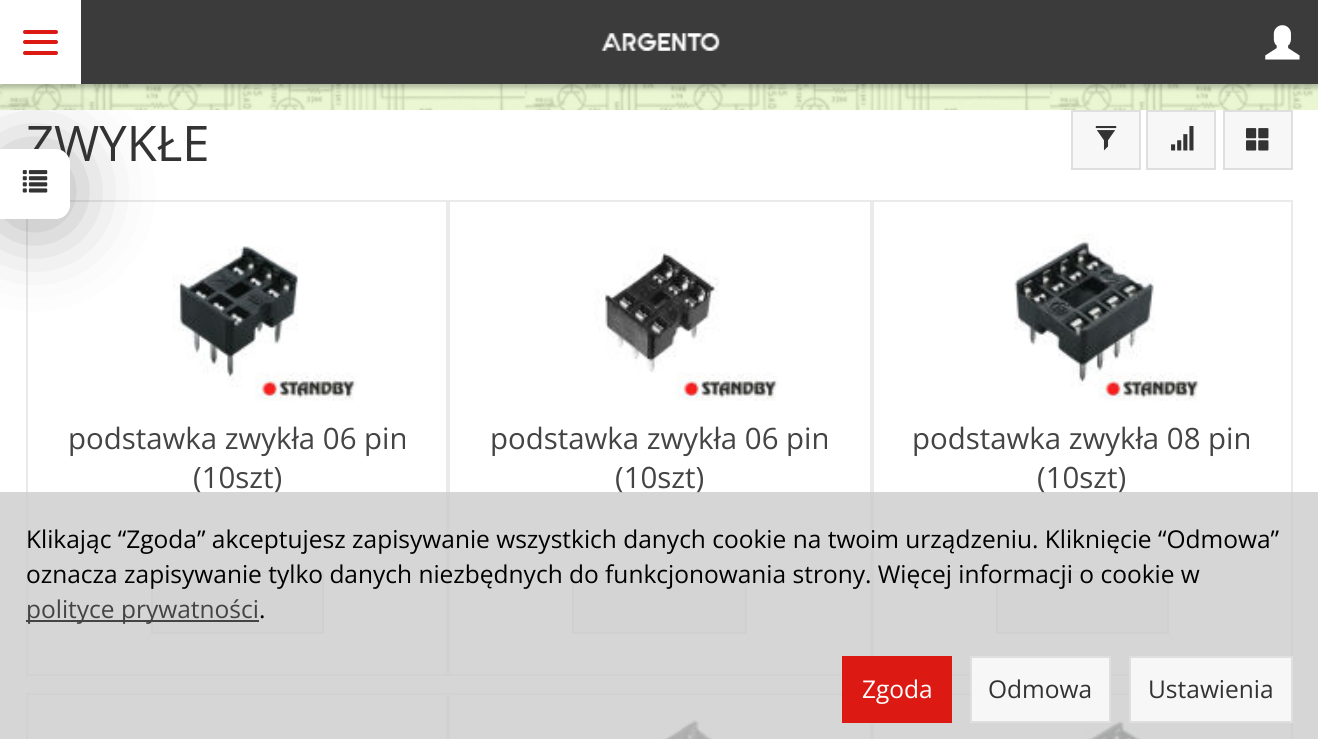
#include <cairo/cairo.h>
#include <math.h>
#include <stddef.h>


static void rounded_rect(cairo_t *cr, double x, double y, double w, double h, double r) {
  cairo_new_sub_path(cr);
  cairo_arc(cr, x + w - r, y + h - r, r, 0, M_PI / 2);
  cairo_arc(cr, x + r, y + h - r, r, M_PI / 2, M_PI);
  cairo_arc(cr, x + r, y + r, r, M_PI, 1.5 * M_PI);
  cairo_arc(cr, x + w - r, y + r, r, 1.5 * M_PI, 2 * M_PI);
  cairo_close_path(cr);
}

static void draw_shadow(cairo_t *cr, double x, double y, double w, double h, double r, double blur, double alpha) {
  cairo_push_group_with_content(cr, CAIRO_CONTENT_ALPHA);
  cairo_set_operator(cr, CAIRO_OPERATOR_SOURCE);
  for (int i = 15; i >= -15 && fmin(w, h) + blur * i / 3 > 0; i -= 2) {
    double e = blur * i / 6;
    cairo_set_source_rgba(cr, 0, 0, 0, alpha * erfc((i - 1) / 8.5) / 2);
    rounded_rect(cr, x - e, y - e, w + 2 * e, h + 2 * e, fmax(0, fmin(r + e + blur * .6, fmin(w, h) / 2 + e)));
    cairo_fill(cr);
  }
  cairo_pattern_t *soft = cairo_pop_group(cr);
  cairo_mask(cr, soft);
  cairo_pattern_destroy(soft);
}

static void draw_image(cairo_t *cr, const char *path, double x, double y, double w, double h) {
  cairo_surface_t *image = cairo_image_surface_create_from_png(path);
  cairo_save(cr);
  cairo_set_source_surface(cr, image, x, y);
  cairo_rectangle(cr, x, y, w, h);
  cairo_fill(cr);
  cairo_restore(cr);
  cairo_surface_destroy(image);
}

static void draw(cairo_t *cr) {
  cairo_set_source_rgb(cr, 1, 1, 1);
  cairo_paint(cr);
  draw_image(cr, "images/1.png", 0, 84, 1318, 26);
  cairo_set_source_rgb(cr, 0, 0, 0);
  draw_shadow(cr, 0, 4, 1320, 84, 0, 2.5, 0.25);
  cairo_rectangle(cr, 27, 201, 420, 474);
  cairo_set_source_rgb(cr, 234 / 255.0, 234 / 255.0, 234 / 255.0);
  cairo_stroke(cr);
  draw_image(cr, "images/8.png", 172, 246, 185, 155);
  cairo_set_source_rgb(cr, 0, 0, 0);
  draw_shadow(cr, 0, 156, 70, 70, 14, 39.5, 0.35);
  cairo_set_source_rgb(cr, 59 / 255.0, 59 / 255.0, 59 / 255.0);
  cairo_rectangle(cr, 81, 0, 1237, 84);
  cairo_fill(cr);
  cairo_set_source_rgb(cr, 1, 1, 1);
  cairo_rectangle(cr, 0, 0, 81, 84);
  cairo_fill(cr);
  cairo_set_source_rgb(cr, 220 / 255.0, 25 / 255.0, 18 / 255.0);
  rounded_rect(cr, 23, 30, 35, 4, 2);
  cairo_fill(cr);
  rounded_rect(cr, 23, 40, 35, 4, 2);
  cairo_fill(cr);
  rounded_rect(cr, 23, 51, 35, 4, 2);
  cairo_fill(cr);
  draw_image(cr, "images/2.png", 601, 33, 119, 18);
  draw_image(cr, "images/3.png", 1265, 25, 35, 35);
  cairo_set_source_rgb(cr, 247 / 255.0, 247 / 255.0, 247 / 255.0);
  cairo_rectangle(cr, 1072, 111, 68, 58);
  cairo_fill_preserve(cr);
  cairo_set_source_rgb(cr, 223 / 255.0, 223 / 255.0, 223 / 255.0);
  cairo_stroke(cr);
  draw_image(cr, "images/5.png", 1095, 126, 22, 25);
  cairo_set_source_rgb(cr, 247 / 255.0, 247 / 255.0, 247 / 255.0);
  cairo_rectangle(cr, 1147, 111, 68, 58);
  cairo_fill_preserve(cr);
  cairo_set_source_rgb(cr, 223 / 255.0, 223 / 255.0, 223 / 255.0);
  cairo_stroke(cr);
  draw_image(cr, "images/6.png", 1171, 126, 23, 25);
  cairo_set_source_rgb(cr, 247 / 255.0, 247 / 255.0, 247 / 255.0);
  cairo_rectangle(cr, 1224, 111, 68, 58);
  cairo_fill_preserve(cr);
  cairo_set_source_rgb(cr, 223 / 255.0, 223 / 255.0, 223 / 255.0);
  cairo_stroke(cr);
  draw_image(cr, "images/7.png", 1246, 128, 23, 23);
  cairo_set_source_rgb(cr, 247 / 255.0, 247 / 255.0, 247 / 255.0);
  cairo_rectangle(cr, 152, 572, 171, 61);
  cairo_fill_preserve(cr);
  cairo_set_source_rgb(cr, 223 / 255.0, 223 / 255.0, 223 / 255.0);
  cairo_stroke(cr);
  cairo_rectangle(cr, 449, 201, 422, 474);
  cairo_set_source_rgb(cr, 234 / 255.0, 234 / 255.0, 234 / 255.0);
  cairo_stroke(cr);
  draw_image(cr, "images/9.png", 594, 247, 185, 154);
  cairo_set_source_rgb(cr, 247 / 255.0, 247 / 255.0, 247 / 255.0);
  cairo_rectangle(cr, 573, 572, 173, 61);
  cairo_fill_preserve(cr);
  cairo_set_source_rgb(cr, 223 / 255.0, 223 / 255.0, 223 / 255.0);
  cairo_stroke(cr);
  cairo_rectangle(cr, 873, 201, 419, 474);
  cairo_set_source_rgb(cr, 234 / 255.0, 234 / 255.0, 234 / 255.0);
  cairo_stroke(cr);
  draw_image(cr, "images/10.png", 1014, 233, 186, 168);
  cairo_set_source_rgb(cr, 247 / 255.0, 247 / 255.0, 247 / 255.0);
  cairo_rectangle(cr, 997, 572, 171, 61);
  cairo_fill_preserve(cr);
  cairo_set_source_rgb(cr, 223 / 255.0, 223 / 255.0, 223 / 255.0);
  cairo_stroke(cr);
  cairo_rectangle(cr, 27, 694, 420, 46);
  cairo_set_source_rgb(cr, 234 / 255.0, 234 / 255.0, 234 / 255.0);
  cairo_stroke(cr);
  cairo_rectangle(cr, 449, 694, 422, 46);
  cairo_stroke(cr);
  draw_image(cr, "images/11.png", 663, 712, 50, 27);
  cairo_rectangle(cr, 873, 694, 419, 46);
  cairo_stroke(cr);
  draw_image(cr, "images/12.png", 1085, 712, 56, 27);
  cairo_select_font_face(cr, "Open Sans", CAIRO_FONT_SLANT_NORMAL, CAIRO_FONT_WEIGHT_NORMAL);
  cairo_set_font_size(cr, 49);
  cairo_set_source_rgb(cr, 51 / 255.0, 51 / 255.0, 51 / 255.0);
  cairo_move_to(cr, 26, 161);
  cairo_show_text(cr, "ZWYKŁE");
  cairo_set_source_rgb(cr, 1, 1, 1);
  cairo_new_path(cr);
  cairo_move_to(cr, 0, 149);
  cairo_line_to(cr, 56, 149);
  cairo_curve_to(cr, 63.5, 149, 70, 155.5, 70, 163);
  cairo_line_to(cr, 70, 205);
  cairo_curve_to(cr, 70, 212.5, 63.5, 219, 56, 219);
  cairo_line_to(cr, 0, 219);
  cairo_close_path(cr);
  cairo_fill(cr);
  draw_image(cr, "images/4.png", 22, 170, 26, 23);
  cairo_set_font_size(cr, 29.4);
  cairo_set_source_rgb(cr, 68 / 255.0, 68 / 255.0, 68 / 255.0);
  cairo_move_to(cr, 68, 449);
  cairo_show_text(cr, "podstawka zwykła 06 pin");
  cairo_move_to(cr, 193, 488);
  cairo_show_text(cr, "(10szt)");
  cairo_move_to(cr, 490, 449);
  cairo_show_text(cr, "podstawka zwykła 06 pin");
  cairo_move_to(cr, 615, 488);
  cairo_show_text(cr, "(10szt)");
  cairo_move_to(cr, 912, 449);
  cairo_show_text(cr, "podstawka zwykła 08 pin");
  cairo_move_to(cr, 1037, 488);
  cairo_show_text(cr, "(10szt)");
  cairo_set_source_rgba(cr, 204 / 255.0, 204 / 255.0, 204 / 255.0, 0.8);
  cairo_rectangle(cr, 0, 492, 1318, 247);
  cairo_fill(cr);
  cairo_set_font_size(cr, 24.5);
  cairo_set_source_rgb(cr, 0, 0, 0);
  cairo_move_to(cr, 26, 548);
  cairo_show_text(cr, "Klikając “Zgoda” akceptujesz zapisywanie wszystkich danych cookie na twoim urządzeniu. Kliknięcie “Odmowa”");
  cairo_move_to(cr, 26, 583);
  cairo_show_text(cr, "oznacza zapisywanie tylko danych niezbędnych do funkcjonowania strony. Więcej informacji o cookie w");
  cairo_set_source_rgb(cr, 68 / 255.0, 68 / 255.0, 68 / 255.0);
  cairo_rectangle(cr, 26, 620, 233, 2);
  cairo_fill(cr);
  cairo_move_to(cr, 26, 618);
  cairo_show_text(cr, "polityce prywatności");
  cairo_set_source_rgb(cr, 0, 0, 0);
  cairo_move_to(cr, 259, 618);
  cairo_show_text(cr, ".");
  cairo_set_source_rgb(cr, 220 / 255.0, 25 / 255.0, 18 / 255.0);
  cairo_rectangle(cr, 842, 656, 110, 67);
  cairo_fill(cr);
  cairo_set_source_rgb(cr, 1, 1, 1);
  cairo_move_to(cr, 862, 698);
  cairo_show_text(cr, "Zgoda");
  cairo_set_source_rgb(cr, 247 / 255.0, 247 / 255.0, 247 / 255.0);
  cairo_rectangle(cr, 971, 657, 139, 65);
  cairo_fill_preserve(cr);
  cairo_set_source_rgb(cr, 223 / 255.0, 223 / 255.0, 223 / 255.0);
  cairo_stroke(cr);
  cairo_set_source_rgb(cr, 51 / 255.0, 51 / 255.0, 51 / 255.0);
  cairo_move_to(cr, 988, 698);
  cairo_show_text(cr, "Odmowa");
  cairo_set_source_rgb(cr, 247 / 255.0, 247 / 255.0, 247 / 255.0);
  cairo_rectangle(cr, 1130, 657, 162, 65);
  cairo_fill_preserve(cr);
  cairo_set_source_rgb(cr, 223 / 255.0, 223 / 255.0, 223 / 255.0);
  cairo_stroke(cr);
  cairo_set_source_rgb(cr, 51 / 255.0, 51 / 255.0, 51 / 255.0);
  cairo_move_to(cr, 1148, 698);
  cairo_show_text(cr, "Ustawienia");
}

int main(void) {
  cairo_surface_t *surface = cairo_image_surface_create(CAIRO_FORMAT_RGB24, 1318, 739);
  cairo_t *cr = cairo_create(surface);
  cairo_font_options_t *options = cairo_font_options_create();
  cairo_font_options_set_hint_metrics(options, CAIRO_HINT_METRICS_OFF);
  cairo_font_options_set_hint_style(options, CAIRO_HINT_STYLE_NONE);
  cairo_set_font_options(cr, options);
  cairo_set_miter_limit(cr, 4);
  draw(cr);
  cairo_surface_write_to_png(surface, "out.png");
  cairo_font_options_destroy(options);
  cairo_destroy(cr);
  cairo_surface_destroy(surface);
  return 0;
}
